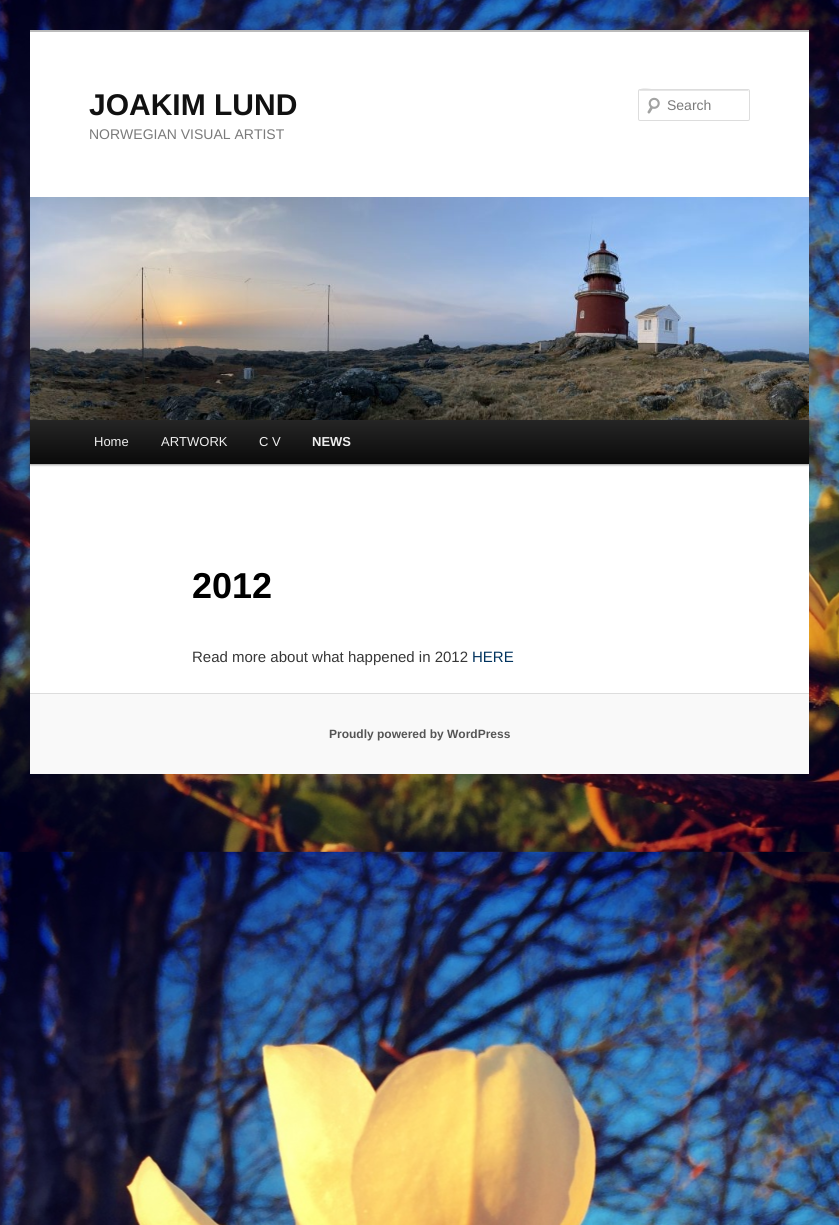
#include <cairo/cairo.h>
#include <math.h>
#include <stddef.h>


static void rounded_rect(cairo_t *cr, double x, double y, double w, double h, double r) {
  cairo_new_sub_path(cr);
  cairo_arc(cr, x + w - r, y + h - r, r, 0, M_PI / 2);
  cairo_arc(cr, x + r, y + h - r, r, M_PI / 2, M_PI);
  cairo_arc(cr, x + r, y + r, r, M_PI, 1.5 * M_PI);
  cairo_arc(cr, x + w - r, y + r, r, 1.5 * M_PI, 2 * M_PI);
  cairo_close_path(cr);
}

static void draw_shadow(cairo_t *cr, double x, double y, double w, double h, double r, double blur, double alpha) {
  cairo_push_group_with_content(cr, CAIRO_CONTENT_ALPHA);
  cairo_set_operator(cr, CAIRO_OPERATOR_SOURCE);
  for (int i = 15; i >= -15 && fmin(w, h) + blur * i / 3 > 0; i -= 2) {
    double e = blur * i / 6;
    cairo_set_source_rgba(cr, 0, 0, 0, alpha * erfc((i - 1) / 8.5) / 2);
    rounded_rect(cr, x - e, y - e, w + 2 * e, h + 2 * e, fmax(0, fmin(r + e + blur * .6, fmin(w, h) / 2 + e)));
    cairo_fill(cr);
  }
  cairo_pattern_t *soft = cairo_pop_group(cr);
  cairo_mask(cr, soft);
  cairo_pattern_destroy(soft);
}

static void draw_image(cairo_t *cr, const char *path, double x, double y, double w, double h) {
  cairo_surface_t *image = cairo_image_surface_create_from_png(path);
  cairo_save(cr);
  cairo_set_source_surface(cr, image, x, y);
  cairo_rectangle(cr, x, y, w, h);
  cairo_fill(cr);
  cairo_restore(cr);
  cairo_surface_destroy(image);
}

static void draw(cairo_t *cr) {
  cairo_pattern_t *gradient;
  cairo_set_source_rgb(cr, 1, 1, 1);
  cairo_paint(cr);
  draw_image(cr, "images/1.png", 0, 0, 839, 1225);
  cairo_set_source_rgb(cr, 1, 1, 1);
  cairo_rectangle(cr, 30, 32, 779, 661);
  cairo_fill(cr);
  cairo_set_source_rgb(cr, 187 / 255.0, 187 / 255.0, 187 / 255.0);
  cairo_rectangle(cr, 30, 30, 779, 2);
  cairo_fill(cr);
  draw_image(cr, "images/2.png", 647, 97, 13, 17);
  cairo_set_source_rgb(cr, 230 / 255.0, 230 / 255.0, 230 / 255.0);
  cairo_new_path(cr);
  cairo_move_to(cr, 640, 91);
  cairo_line_to(cr, 749, 91);
  cairo_line_to(cr, 749, 92);
  cairo_line_to(cr, 748, 90);
  cairo_line_to(cr, 658, 90);
  cairo_curve_to(cr, 654, 90, 639, 85, 639, 92);
  cairo_curve_to(cr, 639, 91, 639, 91, 640, 91);
  cairo_close_path(cr);
  cairo_fill(cr);
  rounded_rect(cr, 638.5, 89.5, 111, 31, 1.5);
  cairo_set_source_rgb(cr, 221 / 255.0, 221 / 255.0, 221 / 255.0);
  cairo_set_line_width(cr, 1);
  cairo_stroke(cr);
  cairo_set_source_rgb(cr, 0, 0, 0);
  draw_shadow(cr, 30, 421, 779, 44, 0, 1, 0.4);
  draw_image(cr, "images/3.png", 30, 197, 779, 223);
  gradient = cairo_pattern_create_linear(420, 420, 420, 464);
  cairo_pattern_add_color_stop_rgba(gradient, 0, 37 / 255.0, 37 / 255.0, 37 / 255.0, 1);
  cairo_pattern_add_color_stop_rgba(gradient, 1, 10 / 255.0, 10 / 255.0, 10 / 255.0, 1);
  cairo_set_source(cr, gradient);
  cairo_pattern_destroy(gradient);
  cairo_rectangle(cr, 30, 420, 779, 44);
  cairo_fill(cr);
  cairo_set_source_rgb(cr, 249 / 255.0, 249 / 255.0, 249 / 255.0);
  cairo_rectangle(cr, 30, 694, 779, 80);
  cairo_fill(cr);
  cairo_set_source_rgb(cr, 221 / 255.0, 221 / 255.0, 221 / 255.0);
  cairo_rectangle(cr, 30, 693, 779, 1);
  cairo_fill(cr);
  cairo_select_font_face(cr, "Liberation Sans", CAIRO_FONT_SLANT_NORMAL, CAIRO_FONT_WEIGHT_BOLD);
  cairo_set_font_size(cr, 30);
  cairo_set_source_rgb(cr, 17 / 255.0, 17 / 255.0, 17 / 255.0);
  cairo_move_to(cr, 89, 115);
  cairo_show_text(cr, "JOAKIM LUND");
  cairo_select_font_face(cr, "Liberation Sans", CAIRO_FONT_SLANT_NORMAL, CAIRO_FONT_WEIGHT_NORMAL);
  cairo_set_font_size(cr, 14);
  cairo_set_source_rgb(cr, 122 / 255.0, 122 / 255.0, 122 / 255.0);
  cairo_move_to(cr, 89, 139);
  cairo_show_text(cr, "NORWEGIAN VISUAL ARTIST");
  cairo_move_to(cr, 667, 110);
  cairo_show_text(cr, "Search");
  cairo_set_font_size(cr, 13);
  cairo_set_source_rgb(cr, 238 / 255.0, 238 / 255.0, 238 / 255.0);
  cairo_move_to(cr, 94, 446);
  cairo_show_text(cr, "Home");
  cairo_move_to(cr, 161, 446);
  cairo_show_text(cr, "ARTWORK");
  cairo_move_to(cr, 259, 446);
  cairo_show_text(cr, "C V");
  cairo_select_font_face(cr, "Liberation Sans", CAIRO_FONT_SLANT_NORMAL, CAIRO_FONT_WEIGHT_BOLD);
  cairo_move_to(cr, 312, 446);
  cairo_show_text(cr, "NEWS");
  cairo_set_font_size(cr, 36);
  cairo_set_source_rgb(cr, 0, 0, 0);
  cairo_move_to(cr, 192, 598);
  cairo_show_text(cr, "2012");
  cairo_select_font_face(cr, "Liberation Sans", CAIRO_FONT_SLANT_NORMAL, CAIRO_FONT_WEIGHT_NORMAL);
  cairo_set_font_size(cr, 15);
  cairo_set_source_rgb(cr, 55 / 255.0, 55 / 255.0, 55 / 255.0);
  cairo_move_to(cr, 192, 662);
  cairo_show_text(cr, "Read more about what happened in 2012");
  cairo_set_source_rgb(cr, 1 / 255.0, 51 / 255.0, 94 / 255.0);
  cairo_move_to(cr, 472, 662);
  cairo_show_text(cr, "HERE");
  cairo_select_font_face(cr, "Liberation Sans", CAIRO_FONT_SLANT_NORMAL, CAIRO_FONT_WEIGHT_BOLD);
  cairo_set_font_size(cr, 12);
  cairo_set_source_rgb(cr, 85 / 255.0, 85 / 255.0, 85 / 255.0);
  cairo_move_to(cr, 329, 738);
  cairo_show_text(cr, "Proudly powered by WordPress");
}

int main(void) {
  cairo_surface_t *surface = cairo_image_surface_create(CAIRO_FORMAT_RGB24, 839, 1225);
  cairo_t *cr = cairo_create(surface);
  cairo_font_options_t *options = cairo_font_options_create();
  cairo_font_options_set_hint_metrics(options, CAIRO_HINT_METRICS_OFF);
  cairo_font_options_set_hint_style(options, CAIRO_HINT_STYLE_NONE);
  cairo_set_font_options(cr, options);
  cairo_set_miter_limit(cr, 4);
  draw(cr);
  cairo_surface_write_to_png(surface, "out.png");
  cairo_font_options_destroy(options);
  cairo_destroy(cr);
  cairo_surface_destroy(surface);
  return 0;
}
